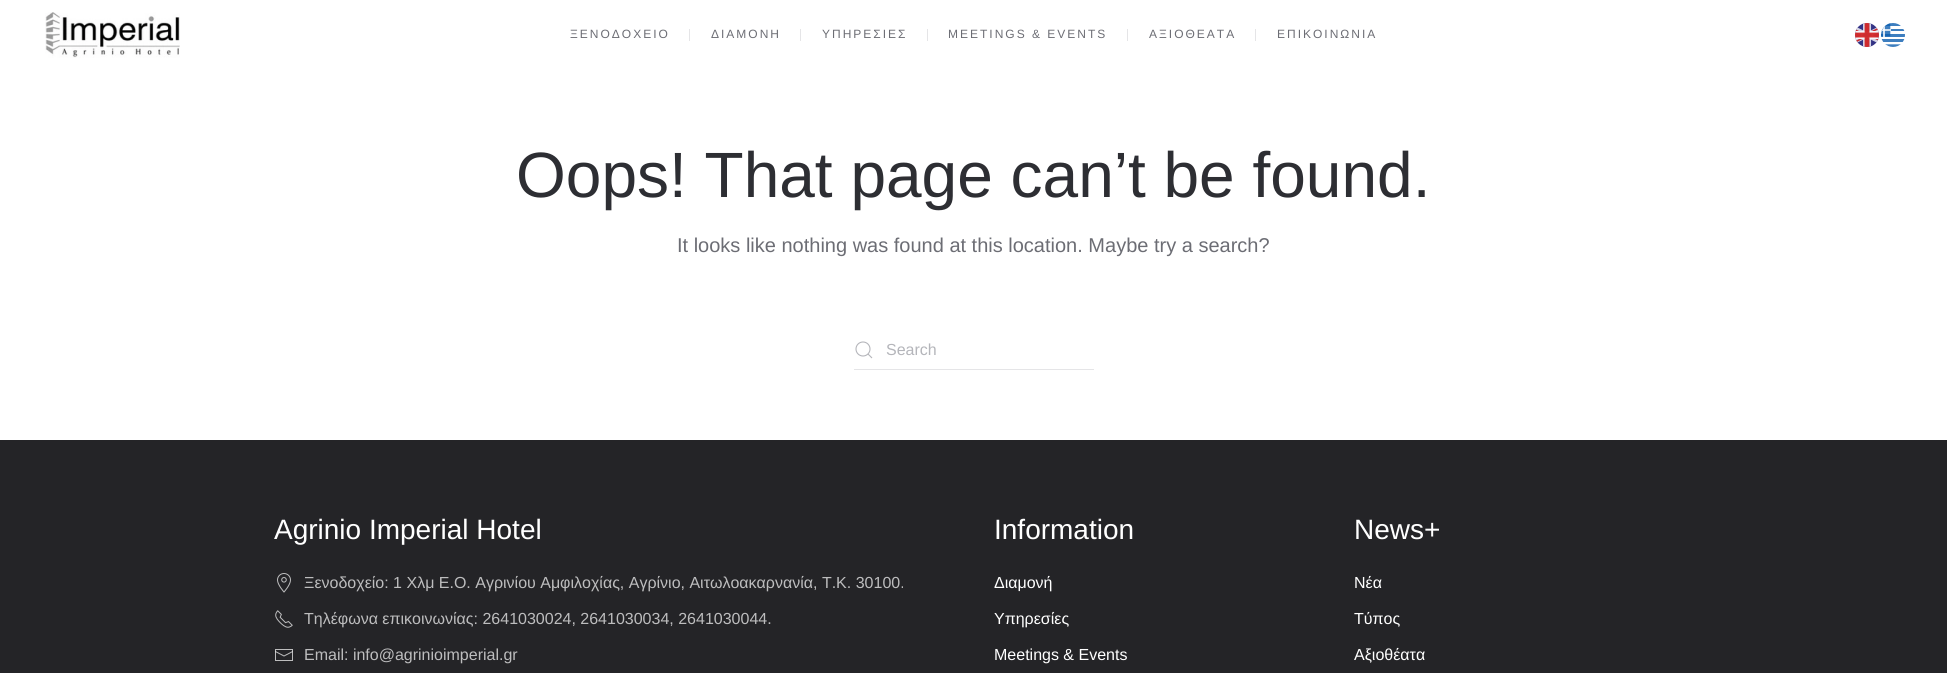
#include <cairo/cairo.h>
#include <math.h>
#include <stddef.h>


static void draw_spaced(cairo_t *cr, double x, double y, const char *s, double letter, double word) {
  cairo_move_to(cr, x, y);
  while (*s) {
    char ch[5] = {0};
    int n = 0;
    do ch[n++] = *s++; while ((*s & 0xC0) == 0x80);
    cairo_show_text(cr, ch);
    cairo_rel_move_to(cr, letter + word * (*ch == ' '), 0);
  }
}

static void draw_image(cairo_t *cr, const char *path, double x, double y, double w, double h) {
  cairo_surface_t *image = cairo_image_surface_create_from_png(path);
  cairo_save(cr);
  cairo_set_source_surface(cr, image, x, y);
  cairo_rectangle(cr, x, y, w, h);
  cairo_fill(cr);
  cairo_restore(cr);
  cairo_surface_destroy(image);
}

static void draw(cairo_t *cr) {
  cairo_set_source_rgb(cr, 1, 1, 1);
  cairo_paint(cr);
  draw_image(cr, "images/1.png", 45, 12, 135, 46);
  cairo_set_source_rgb(cr, 229 / 255.0, 229 / 255.0, 231 / 255.0);
  cairo_rectangle(cr, 689, 29, 1, 12);
  cairo_fill(cr);
  cairo_rectangle(cr, 800, 29, 1, 12);
  cairo_fill(cr);
  cairo_rectangle(cr, 927, 29, 1, 12);
  cairo_fill(cr);
  cairo_rectangle(cr, 1127, 29, 1, 12);
  cairo_fill(cr);
  cairo_rectangle(cr, 1255, 29, 1, 12);
  cairo_fill(cr);
  draw_image(cr, "images/2.png", 1855, 23, 24, 24);
  draw_image(cr, "images/3.png", 1881, 23, 24, 24);
  cairo_arc(cr, 863, 349, 7, 0, 2 * M_PI);
  cairo_set_source_rgb(cr, 180 / 255.0, 181 / 255.0, 186 / 255.0);
  cairo_set_line_width(cr, 1.1);
  cairo_stroke(cr);
  cairo_new_path(cr);
  cairo_move_to(cr, 868, 354);
  cairo_line_to(cr, 872, 358);
  cairo_close_path(cr);
  cairo_stroke(cr);
  cairo_set_source_rgb(cr, 229 / 255.0, 229 / 255.0, 231 / 255.0);
  cairo_rectangle(cr, 854, 369, 240, 1);
  cairo_fill(cr);
  cairo_set_source_rgb(cr, 36 / 255.0, 36 / 255.0, 39 / 255.0);
  cairo_rectangle(cr, 0, 440, 1947, 233);
  cairo_fill(cr);
  draw_image(cr, "images/4.png", 277, 573, 14, 20);
  draw_image(cr, "images/5.png", 275, 610, 18, 18);
  draw_image(cr, "images/6.png", 275, 649, 18, 12);
  cairo_select_font_face(cr, "Liberation Sans", CAIRO_FONT_SLANT_NORMAL, CAIRO_FONT_WEIGHT_NORMAL);
  cairo_set_font_size(cr, 12);
  cairo_set_source_rgb(cr, 108 / 255.0, 109 / 255.0, 116 / 255.0);
  draw_spaced(cr, 570, 38, "ΞΕΝΟΔΟΧΕΙΟ", 2, 0);
  draw_spaced(cr, 711, 38, "ΔΙΑΜΟΝΗ", 2, 0);
  draw_spaced(cr, 822, 38, "ΥΠΗΡΕΣΙΕΣ", 2, 0);
  draw_spaced(cr, 948, 38, "MEETINGS & EVENTS", 2, 0);
  draw_spaced(cr, 1149, 38, "ΑΞΙΟΘΕΑΤΑ", 2, 0);
  draw_spaced(cr, 1277, 38, "ΕΠΙΚΟΙΝΩΝΙΑ", 2, 0);
  cairo_set_font_size(cr, 64);
  cairo_set_source_rgb(cr, 45 / 255.0, 46 / 255.0, 51 / 255.0);
  cairo_move_to(cr, 516, 197);
  cairo_show_text(cr, "Oops! That page can’t be found.");
  cairo_set_font_size(cr, 20);
  cairo_set_source_rgb(cr, 108 / 255.0, 109 / 255.0, 116 / 255.0);
  cairo_move_to(cr, 677, 252);
  cairo_show_text(cr, "It looks like nothing was found at this location. Maybe try a search?");
  cairo_set_font_size(cr, 16);
  cairo_set_source_rgb(cr, 180 / 255.0, 181 / 255.0, 186 / 255.0);
  cairo_move_to(cr, 886, 355);
  cairo_show_text(cr, "Search");
  cairo_set_font_size(cr, 28);
  cairo_set_source_rgb(cr, 1, 1, 1);
  cairo_move_to(cr, 274, 539);
  cairo_show_text(cr, "Agrinio Imperial Hotel");
  cairo_set_font_size(cr, 16);
  cairo_set_source_rgb(cr, 189 / 255.0, 189 / 255.0, 190 / 255.0);
  cairo_move_to(cr, 304, 588);
  cairo_show_text(cr, "Ξενοδοχείο: 1 Χλμ Ε.Ο. Αγρινίου Αμφιλοχίας, Αγρίνιο, Αιτωλοακαρνανία, Τ.Κ. 30100.");
  cairo_move_to(cr, 304, 624);
  cairo_show_text(cr, "Τηλέφωνα επικοινωνίας: 2641030024, 2641030034, 2641030044.");
  cairo_move_to(cr, 304, 660);
  cairo_show_text(cr, "Email: info@agrinioimperial.gr");
  cairo_set_font_size(cr, 28);
  cairo_set_source_rgb(cr, 1, 1, 1);
  cairo_move_to(cr, 994, 539);
  cairo_show_text(cr, "Information");
  cairo_set_font_size(cr, 16);
  cairo_move_to(cr, 994, 588);
  cairo_show_text(cr, "Διαμονή");
  cairo_move_to(cr, 994, 624);
  cairo_show_text(cr, "Υπηρεσίες");
  cairo_move_to(cr, 994, 660);
  cairo_show_text(cr, "Meetings & Events");
  cairo_set_font_size(cr, 28);
  cairo_move_to(cr, 1354, 539);
  cairo_show_text(cr, "News+");
  cairo_set_font_size(cr, 16);
  cairo_move_to(cr, 1354, 588);
  cairo_show_text(cr, "Νέα");
  cairo_move_to(cr, 1354, 624);
  cairo_show_text(cr, "Τύπος");
  cairo_move_to(cr, 1354, 660);
  cairo_show_text(cr, "Αξιοθέατα");
}

int main(void) {
  cairo_surface_t *surface = cairo_image_surface_create(CAIRO_FORMAT_RGB24, 1947, 673);
  cairo_t *cr = cairo_create(surface);
  cairo_font_options_t *options = cairo_font_options_create();
  cairo_font_options_set_hint_metrics(options, CAIRO_HINT_METRICS_OFF);
  cairo_font_options_set_hint_style(options, CAIRO_HINT_STYLE_NONE);
  cairo_set_font_options(cr, options);
  cairo_set_miter_limit(cr, 4);
  draw(cr);
  cairo_surface_write_to_png(surface, "out.png");
  cairo_font_options_destroy(options);
  cairo_destroy(cr);
  cairo_surface_destroy(surface);
  return 0;
}
